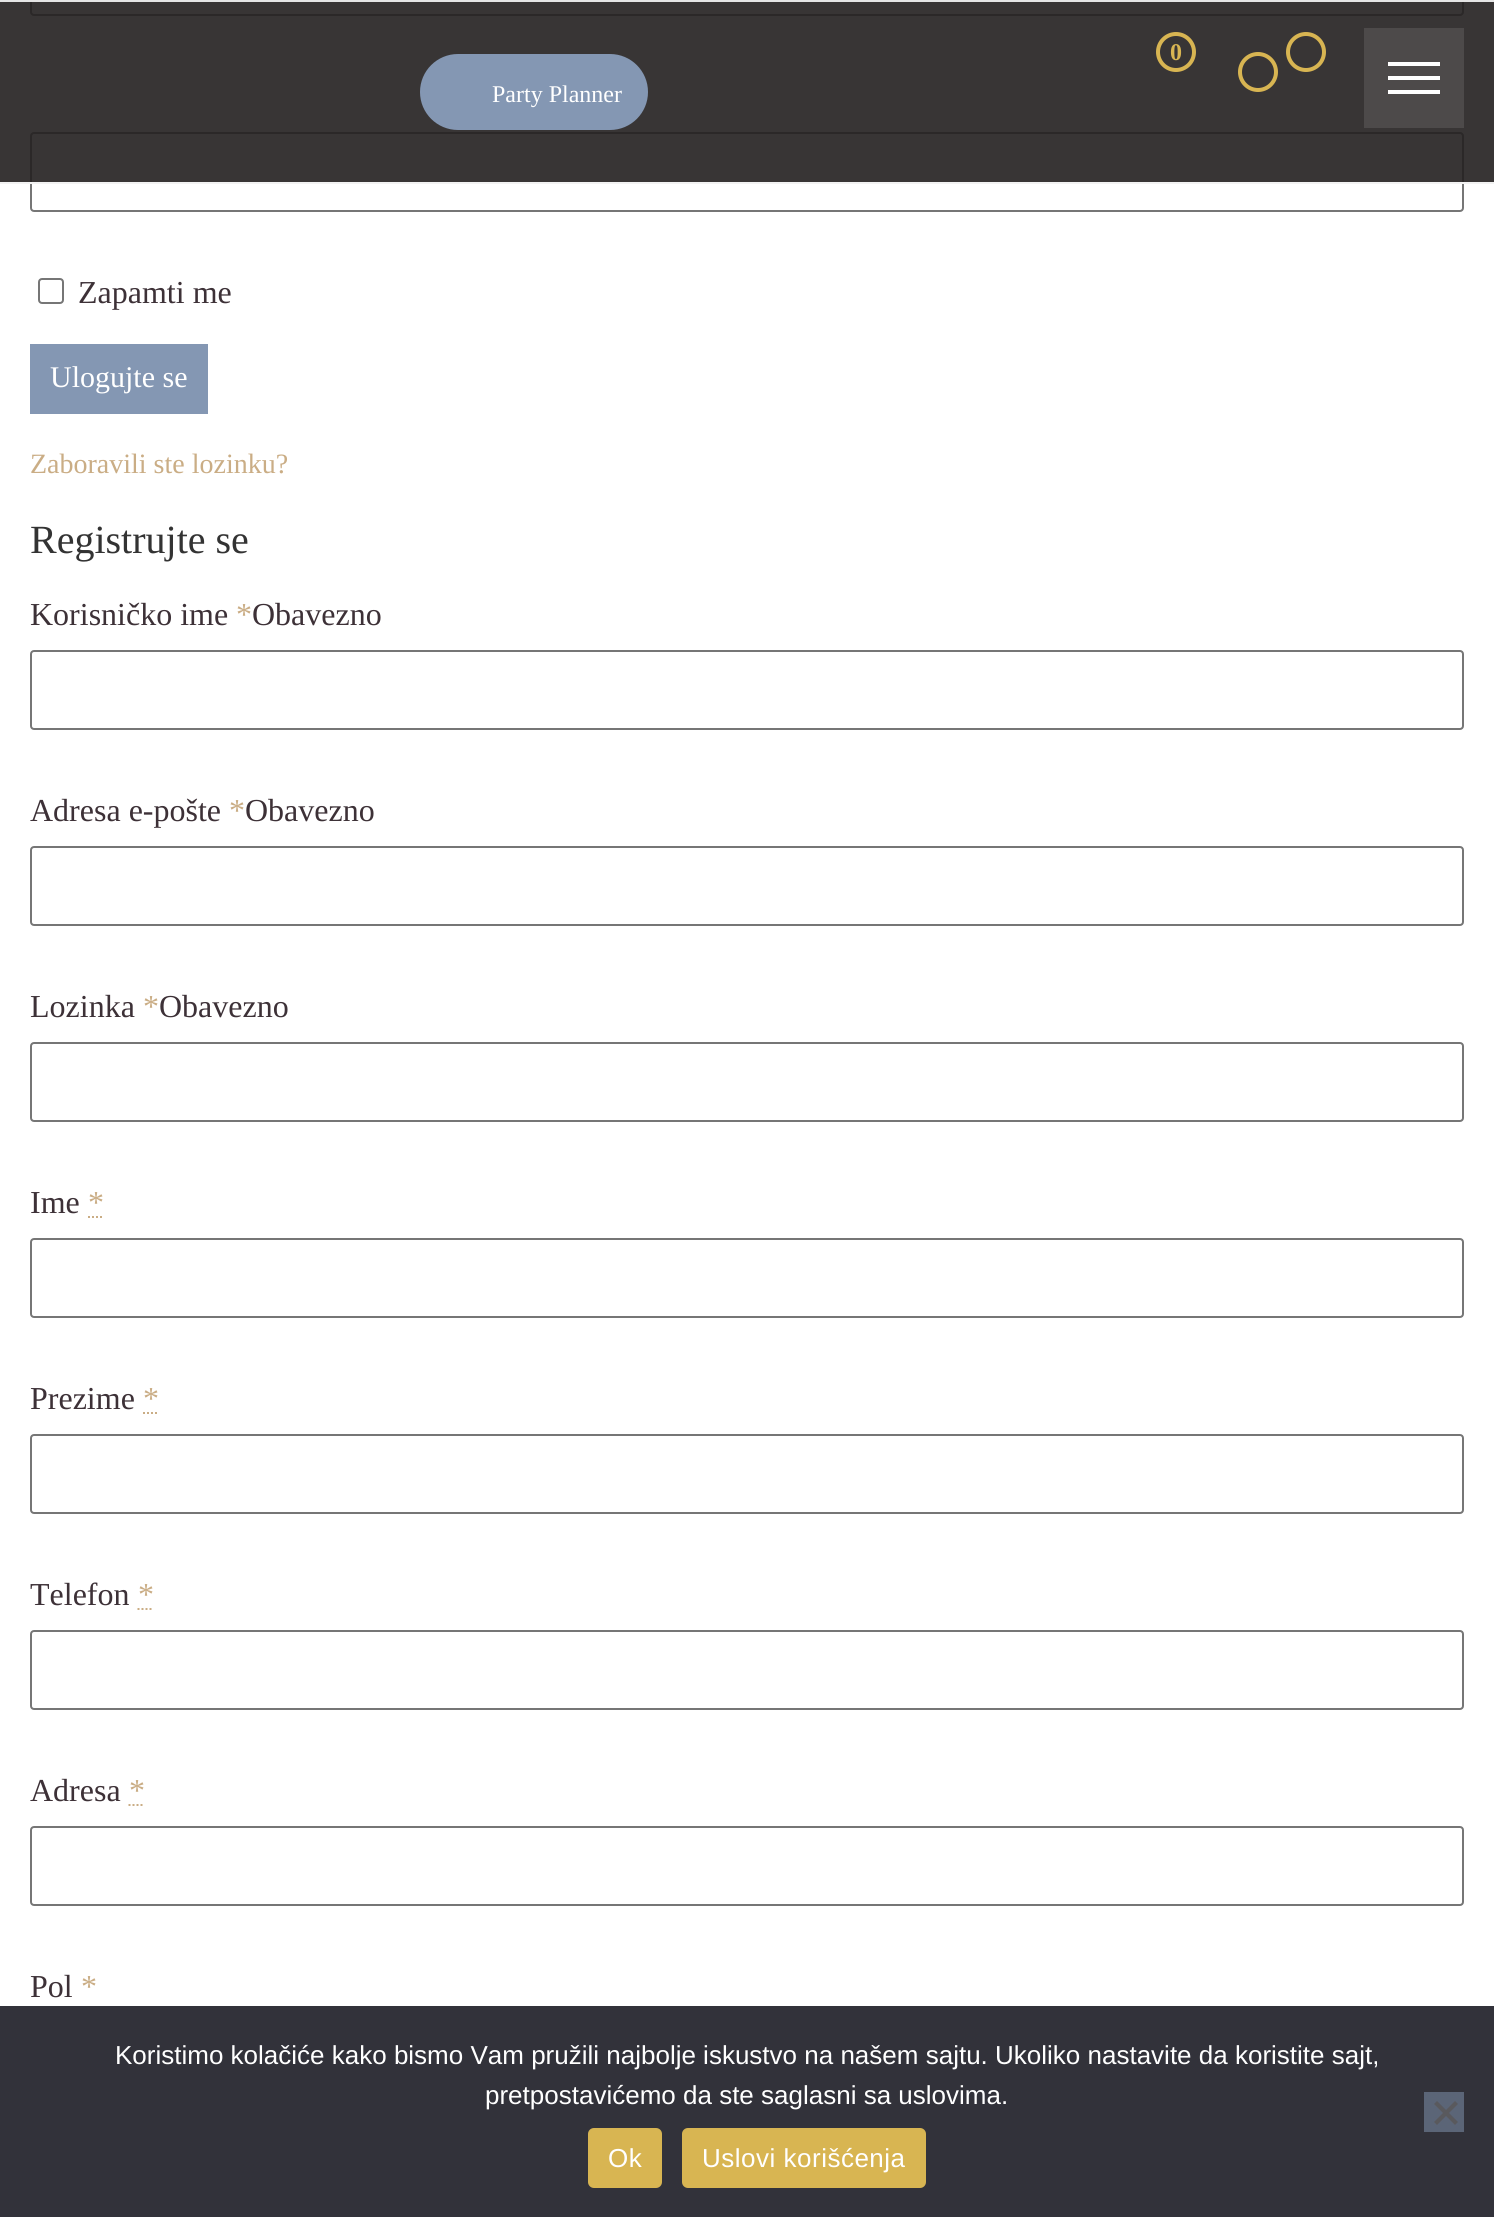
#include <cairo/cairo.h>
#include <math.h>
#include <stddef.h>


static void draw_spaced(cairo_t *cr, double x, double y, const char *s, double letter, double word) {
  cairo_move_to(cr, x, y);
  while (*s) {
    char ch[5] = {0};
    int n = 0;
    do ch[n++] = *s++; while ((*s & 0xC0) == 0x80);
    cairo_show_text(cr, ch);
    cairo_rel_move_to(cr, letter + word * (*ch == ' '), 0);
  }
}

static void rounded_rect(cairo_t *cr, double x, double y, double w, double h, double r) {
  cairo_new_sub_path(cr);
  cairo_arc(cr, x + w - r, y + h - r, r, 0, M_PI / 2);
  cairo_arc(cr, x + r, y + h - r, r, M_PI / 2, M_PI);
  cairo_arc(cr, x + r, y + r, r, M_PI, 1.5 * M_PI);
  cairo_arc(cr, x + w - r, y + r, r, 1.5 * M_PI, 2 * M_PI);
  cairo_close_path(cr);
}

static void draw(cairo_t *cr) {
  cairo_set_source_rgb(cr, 1, 1, 1);
  cairo_paint(cr);
  rounded_rect(cr, 31, -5, 1432, 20, 3);
  cairo_set_source_rgb(cr, 118 / 255.0, 118 / 255.0, 118 / 255.0);
  cairo_stroke(cr);
  rounded_rect(cr, 31, 133, 1432, 78, 3);
  cairo_stroke(cr);
  cairo_set_source_rgba(cr, 35 / 255.0, 31 / 255.0, 32 / 255.0, 0.9);
  cairo_rectangle(cr, 0, 2, 1494, 180);
  cairo_fill(cr);
  cairo_set_source_rgb(cr, 242 / 255.0, 242 / 255.0, 242 / 255.0);
  cairo_rectangle(cr, 0, 182, 1494, 2);
  cairo_fill(cr);
  cairo_set_source_rgb(cr, 229 / 255.0, 229 / 255.0, 229 / 255.0);
  cairo_rectangle(cr, 0, 0, 1494, 2);
  cairo_fill(cr);
  cairo_arc(cr, 1176, 52, 18, 0, 2 * M_PI);
  cairo_set_source_rgb(cr, 216 / 255.0, 181 / 255.0, 82 / 255.0);
  cairo_set_line_width(cr, 4);
  cairo_stroke(cr);
  cairo_arc(cr, 1258, 72, 18, 0, 2 * M_PI);
  cairo_stroke(cr);
  cairo_arc(cr, 1306, 52, 18, 0, 2 * M_PI);
  cairo_stroke(cr);
  cairo_set_source_rgb(cr, 77 / 255.0, 74 / 255.0, 74 / 255.0);
  cairo_rectangle(cr, 1364, 28, 100, 100);
  cairo_fill(cr);
  cairo_set_source_rgb(cr, 1, 1, 1);
  cairo_rectangle(cr, 1388, 76, 52, 4);
  cairo_fill(cr);
  cairo_rectangle(cr, 1388, 62, 52, 4);
  cairo_fill(cr);
  cairo_rectangle(cr, 1388, 90, 52, 4);
  cairo_fill(cr);
  cairo_set_source_rgb(cr, 132 / 255.0, 151 / 255.0, 179 / 255.0);
  rounded_rect(cr, 421, 55, 226, 74, 37);
  cairo_fill_preserve(cr);
  cairo_set_line_width(cr, 2);
  cairo_stroke(cr);
  rounded_rect(cr, 39, 279, 24, 24, 3);
  cairo_set_source_rgb(cr, 118 / 255.0, 118 / 255.0, 118 / 255.0);
  cairo_stroke(cr);
  cairo_set_source_rgb(cr, 132 / 255.0, 151 / 255.0, 179 / 255.0);
  cairo_rectangle(cr, 30, 344, 178, 70);
  cairo_fill(cr);
  rounded_rect(cr, 31, 651, 1432, 78, 3);
  cairo_set_source_rgb(cr, 118 / 255.0, 118 / 255.0, 118 / 255.0);
  cairo_stroke(cr);
  rounded_rect(cr, 31, 847, 1432, 78, 3);
  cairo_stroke(cr);
  rounded_rect(cr, 31, 1043, 1432, 78, 3);
  cairo_stroke(cr);
  cairo_new_path(cr);
  cairo_move_to(cr, 88, 1217);
  cairo_line_to(cr, 104, 1217);
  cairo_set_source_rgb(cr, 202 / 255.0, 173 / 255.0, 133 / 255.0);
  cairo_set_dash(cr, (double[]){2, 2}, 2, 0);
  cairo_stroke(cr);
  rounded_rect(cr, 31, 1239, 1432, 78, 3);
  cairo_set_source_rgb(cr, 118 / 255.0, 118 / 255.0, 118 / 255.0);
  cairo_set_dash(cr, NULL, 0, 0);
  cairo_stroke(cr);
  cairo_new_path(cr);
  cairo_move_to(cr, 143, 1413);
  cairo_line_to(cr, 159, 1413);
  cairo_set_source_rgb(cr, 202 / 255.0, 173 / 255.0, 133 / 255.0);
  cairo_set_dash(cr, (double[]){2, 2}, 2, 0);
  cairo_stroke(cr);
  rounded_rect(cr, 31, 1435, 1432, 78, 3);
  cairo_set_source_rgb(cr, 118 / 255.0, 118 / 255.0, 118 / 255.0);
  cairo_set_dash(cr, NULL, 0, 0);
  cairo_stroke(cr);
  cairo_new_path(cr);
  cairo_move_to(cr, 137.5, 1609);
  cairo_line_to(cr, 153.5, 1609);
  cairo_set_source_rgb(cr, 202 / 255.0, 173 / 255.0, 133 / 255.0);
  cairo_set_dash(cr, (double[]){2, 2}, 2, 0);
  cairo_stroke(cr);
  rounded_rect(cr, 31, 1631, 1432, 78, 3);
  cairo_set_source_rgb(cr, 118 / 255.0, 118 / 255.0, 118 / 255.0);
  cairo_set_dash(cr, NULL, 0, 0);
  cairo_stroke(cr);
  cairo_new_path(cr);
  cairo_move_to(cr, 128.5, 1805);
  cairo_line_to(cr, 144.5, 1805);
  cairo_set_source_rgb(cr, 202 / 255.0, 173 / 255.0, 133 / 255.0);
  cairo_set_dash(cr, (double[]){2, 2}, 2, 0);
  cairo_stroke(cr);
  rounded_rect(cr, 31, 1827, 1432, 78, 3);
  cairo_set_source_rgb(cr, 118 / 255.0, 118 / 255.0, 118 / 255.0);
  cairo_set_dash(cr, NULL, 0, 0);
  cairo_stroke(cr);
  cairo_set_source_rgb(cr, 50 / 255.0, 50 / 255.0, 58 / 255.0);
  cairo_rectangle(cr, 0, 2006, 1494, 211);
  cairo_fill(cr);
  cairo_set_source_rgb(cr, 91 / 255.0, 101 / 255.0, 119 / 255.0);
  cairo_rectangle(cr, 1424, 2092, 40, 40);
  cairo_fill(cr);
  cairo_set_source_rgb(cr, 89 / 255.0, 89 / 255.0, 93 / 255.0);
  cairo_new_path(cr);
  cairo_move_to(cr, 1455, 2101);
  cairo_line_to(cr, 1458, 2104);
  cairo_line_to(cr, 1437, 2125);
  cairo_line_to(cr, 1434, 2122);
  cairo_close_path(cr);
  cairo_fill(cr);
  cairo_new_path(cr);
  cairo_move_to(cr, 1434, 2104);
  cairo_line_to(cr, 1437, 2101);
  cairo_line_to(cr, 1458, 2122);
  cairo_line_to(cr, 1455, 2125);
  cairo_close_path(cr);
  cairo_fill(cr);
  cairo_set_source_rgb(cr, 216 / 255.0, 181 / 255.0, 82 / 255.0);
  rounded_rect(cr, 588, 2128, 74, 60, 6);
  cairo_fill(cr);
  rounded_rect(cr, 682, 2128, 244, 60, 6);
  cairo_fill(cr);
  cairo_select_font_face(cr, "Liberation Serif", CAIRO_FONT_SLANT_NORMAL, CAIRO_FONT_WEIGHT_BOLD);
  cairo_set_font_size(cr, 24);
  cairo_move_to(cr, 1170, 60);
  cairo_show_text(cr, "0");
  cairo_select_font_face(cr, "Liberation Serif", CAIRO_FONT_SLANT_NORMAL, CAIRO_FONT_WEIGHT_NORMAL);
  cairo_set_source_rgb(cr, 1, 1, 1);
  cairo_move_to(cr, 492, 102);
  cairo_show_text(cr, "Party Planner");
  cairo_set_font_size(cr, 32);
  cairo_set_source_rgb(cr, 61 / 255.0, 49 / 255.0, 55 / 255.0);
  cairo_move_to(cr, 78, 303);
  cairo_show_text(cr, "Zapamti me");
  cairo_set_font_size(cr, 30);
  cairo_set_source_rgb(cr, 1, 1, 1);
  cairo_move_to(cr, 50, 387);
  cairo_show_text(cr, "Ulogujte se");
  cairo_set_font_size(cr, 28);
  cairo_set_source_rgb(cr, 202 / 255.0, 173 / 255.0, 133 / 255.0);
  cairo_move_to(cr, 30, 473);
  cairo_show_text(cr, "Zaboravili ste lozinku?");
  cairo_set_font_size(cr, 40);
  cairo_set_source_rgb(cr, 51 / 255.0, 51 / 255.0, 51 / 255.0);
  cairo_move_to(cr, 30, 553);
  cairo_show_text(cr, "Registrujte se");
  cairo_set_font_size(cr, 32);
  cairo_set_source_rgb(cr, 61 / 255.0, 49 / 255.0, 55 / 255.0);
  cairo_move_to(cr, 30, 625);
  cairo_show_text(cr, "Korisničko ime");
  cairo_set_source_rgb(cr, 202 / 255.0, 173 / 255.0, 133 / 255.0);
  cairo_move_to(cr, 236, 625);
  cairo_show_text(cr, "*");
  cairo_set_source_rgb(cr, 61 / 255.0, 49 / 255.0, 55 / 255.0);
  cairo_move_to(cr, 252, 625);
  cairo_show_text(cr, "Obavezno");
  cairo_move_to(cr, 30, 821);
  cairo_show_text(cr, "Adresa e-pošte");
  cairo_set_source_rgb(cr, 202 / 255.0, 173 / 255.0, 133 / 255.0);
  cairo_move_to(cr, 229, 821);
  cairo_show_text(cr, "*");
  cairo_set_source_rgb(cr, 61 / 255.0, 49 / 255.0, 55 / 255.0);
  cairo_move_to(cr, 245, 821);
  cairo_show_text(cr, "Obavezno");
  cairo_move_to(cr, 30, 1017);
  cairo_show_text(cr, "Lozinka");
  cairo_set_source_rgb(cr, 202 / 255.0, 173 / 255.0, 133 / 255.0);
  cairo_move_to(cr, 143, 1017);
  cairo_show_text(cr, "*");
  cairo_set_source_rgb(cr, 61 / 255.0, 49 / 255.0, 55 / 255.0);
  cairo_move_to(cr, 159, 1017);
  cairo_show_text(cr, "Obavezno");
  cairo_move_to(cr, 30, 1213);
  cairo_show_text(cr, "Ime");
  cairo_set_source_rgb(cr, 202 / 255.0, 173 / 255.0, 133 / 255.0);
  cairo_move_to(cr, 88, 1213);
  cairo_show_text(cr, "*");
  cairo_set_source_rgb(cr, 61 / 255.0, 49 / 255.0, 55 / 255.0);
  cairo_move_to(cr, 30, 1409);
  cairo_show_text(cr, "Prezime");
  cairo_set_source_rgb(cr, 202 / 255.0, 173 / 255.0, 133 / 255.0);
  cairo_move_to(cr, 143, 1409);
  cairo_show_text(cr, "*");
  cairo_set_source_rgb(cr, 61 / 255.0, 49 / 255.0, 55 / 255.0);
  cairo_move_to(cr, 30, 1605);
  cairo_show_text(cr, "Telefon");
  cairo_set_source_rgb(cr, 202 / 255.0, 173 / 255.0, 133 / 255.0);
  cairo_move_to(cr, 138, 1605);
  cairo_show_text(cr, "*");
  cairo_set_source_rgb(cr, 61 / 255.0, 49 / 255.0, 55 / 255.0);
  cairo_move_to(cr, 30, 1801);
  cairo_show_text(cr, "Adresa");
  cairo_set_source_rgb(cr, 202 / 255.0, 173 / 255.0, 133 / 255.0);
  cairo_move_to(cr, 129, 1801);
  cairo_show_text(cr, "*");
  cairo_set_source_rgb(cr, 61 / 255.0, 49 / 255.0, 55 / 255.0);
  cairo_move_to(cr, 30, 1997);
  cairo_show_text(cr, "Pol");
  cairo_set_source_rgb(cr, 202 / 255.0, 173 / 255.0, 133 / 255.0);
  cairo_move_to(cr, 81, 1997);
  cairo_show_text(cr, "*");
  cairo_select_font_face(cr, "Liberation Sans", CAIRO_FONT_SLANT_NORMAL, CAIRO_FONT_WEIGHT_NORMAL);
  cairo_set_font_size(cr, 26);
  cairo_set_source_rgb(cr, 1, 1, 1);
  cairo_move_to(cr, 115, 2064);
  cairo_show_text(cr, "Koristimo kolačiće kako bismo Vam pružili najbolje iskustvo na našem sajtu. Ukoliko nastavite da koristite sajt,");
  cairo_move_to(cr, 485, 2104);
  cairo_show_text(cr, "pretpostavićemo da ste saglasni sa uslovima.");
  draw_spaced(cr, 608, 2167, "Ok", 0.5, 0);
  draw_spaced(cr, 702, 2167, "Uslovi korišćenja", 0.5, 0);
}

int main(void) {
  cairo_surface_t *surface = cairo_image_surface_create(CAIRO_FORMAT_RGB24, 1494, 2217);
  cairo_t *cr = cairo_create(surface);
  cairo_font_options_t *options = cairo_font_options_create();
  cairo_font_options_set_hint_metrics(options, CAIRO_HINT_METRICS_OFF);
  cairo_font_options_set_hint_style(options, CAIRO_HINT_STYLE_NONE);
  cairo_set_font_options(cr, options);
  cairo_set_miter_limit(cr, 4);
  draw(cr);
  cairo_surface_write_to_png(surface, "out.png");
  cairo_font_options_destroy(options);
  cairo_destroy(cr);
  cairo_surface_destroy(surface);
  return 0;
}
